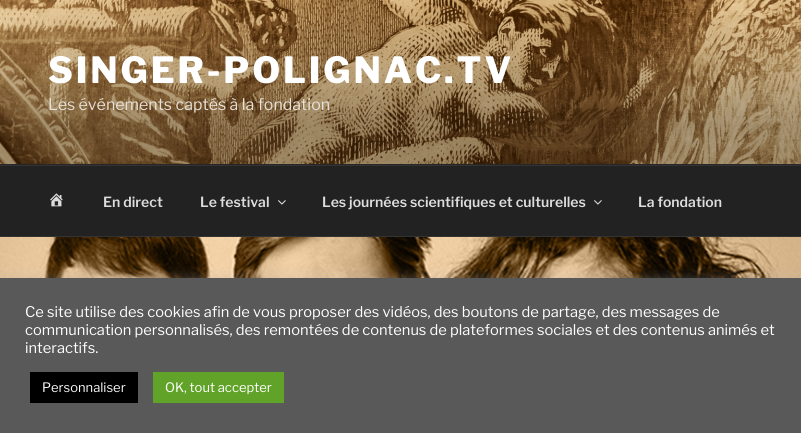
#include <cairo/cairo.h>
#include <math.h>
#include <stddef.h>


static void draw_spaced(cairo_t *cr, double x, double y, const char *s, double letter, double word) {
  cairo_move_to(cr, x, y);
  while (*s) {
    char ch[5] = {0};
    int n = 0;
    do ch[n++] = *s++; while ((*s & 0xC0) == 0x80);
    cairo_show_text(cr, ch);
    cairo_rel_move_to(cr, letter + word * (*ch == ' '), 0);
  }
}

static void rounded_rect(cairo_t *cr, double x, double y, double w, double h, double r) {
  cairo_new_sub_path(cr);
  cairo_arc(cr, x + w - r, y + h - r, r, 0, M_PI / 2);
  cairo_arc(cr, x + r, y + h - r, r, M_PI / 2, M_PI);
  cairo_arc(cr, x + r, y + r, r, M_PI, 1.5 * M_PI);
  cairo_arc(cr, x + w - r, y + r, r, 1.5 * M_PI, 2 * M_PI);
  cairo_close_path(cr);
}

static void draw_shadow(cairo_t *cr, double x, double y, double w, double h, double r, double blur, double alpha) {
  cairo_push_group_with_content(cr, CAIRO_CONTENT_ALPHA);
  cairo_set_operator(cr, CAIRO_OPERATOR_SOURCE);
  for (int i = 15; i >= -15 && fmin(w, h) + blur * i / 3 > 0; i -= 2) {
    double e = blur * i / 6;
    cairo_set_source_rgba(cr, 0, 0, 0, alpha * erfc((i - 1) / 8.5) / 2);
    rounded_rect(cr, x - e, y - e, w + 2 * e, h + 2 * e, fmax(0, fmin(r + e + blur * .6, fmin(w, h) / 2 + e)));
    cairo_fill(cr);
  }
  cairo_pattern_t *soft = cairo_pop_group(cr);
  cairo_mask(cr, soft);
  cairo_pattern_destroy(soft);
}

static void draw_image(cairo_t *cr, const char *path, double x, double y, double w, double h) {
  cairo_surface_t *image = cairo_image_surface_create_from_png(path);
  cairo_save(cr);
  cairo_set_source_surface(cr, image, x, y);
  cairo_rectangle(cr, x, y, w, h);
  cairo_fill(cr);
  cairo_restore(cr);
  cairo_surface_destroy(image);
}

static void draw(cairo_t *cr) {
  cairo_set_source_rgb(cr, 1, 1, 1);
  cairo_paint(cr);
  cairo_set_source_rgb(cr, 38 / 255.0, 38 / 255.0, 38 / 255.0);
  cairo_rectangle(cr, 0, 164, 801, 1);
  cairo_fill(cr);
  draw_image(cr, "images/1.png", 0, 0, 801, 164);
  cairo_set_source_rgb(cr, 34 / 255.0, 34 / 255.0, 34 / 255.0);
  cairo_rectangle(cr, 0, 166, 801, 70);
  cairo_fill(cr);
  cairo_set_source_rgb(cr, 51 / 255.0, 51 / 255.0, 51 / 255.0);
  cairo_rectangle(cr, 0, 165, 801, 1);
  cairo_fill(cr);
  cairo_rectangle(cr, 0, 236, 801, 1);
  cairo_fill(cr);
  draw_image(cr, "images/2.png", 50, 193, 13, 14);
  draw_image(cr, "images/3.png", 278, 200, 8, 5);
  draw_image(cr, "images/3.png", 594, 200, 8, 5);
  draw_image(cr, "images/4.png", 0, 237, 801, 41);
  cairo_set_source_rgb(cr, 172 / 255.0, 171 / 255.0, 171 / 255.0);
  draw_shadow(cr, 0, 277, 801, 155, 0, 5, 0.3);
  cairo_set_source_rgb(cr, 89 / 255.0, 89 / 255.0, 89 / 255.0);
  cairo_rectangle(cr, 0, 278, 801, 155);
  cairo_fill(cr);
  cairo_set_source_rgb(cr, 0, 0, 0);
  cairo_rectangle(cr, 30, 372, 108, 31);
  cairo_fill(cr);
  cairo_set_source_rgb(cr, 97 / 255.0, 162 / 255.0, 41 / 255.0);
  cairo_rectangle(cr, 153, 372, 131, 31);
  cairo_fill(cr);
  cairo_select_font_face(cr, "Libre Franklin Thin", CAIRO_FONT_SLANT_NORMAL, CAIRO_FONT_WEIGHT_NORMAL);
  cairo_set_font_size(cr, 36);
  cairo_set_source_rgb(cr, 1, 1, 1);
  draw_spaced(cr, 48, 83, "SINGER-POLIGNAC.TV", 2.9, 0);
  cairo_select_font_face(cr, "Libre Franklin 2 Thin", CAIRO_FONT_SLANT_NORMAL, CAIRO_FONT_WEIGHT_NORMAL);
  cairo_set_font_size(cr, 16);
  cairo_set_source_rgb(cr, 231 / 255.0, 225 / 255.0, 217 / 255.0);
  cairo_move_to(cr, 48, 110);
  cairo_show_text(cr, "Les événements captés à la fondation");
  cairo_select_font_face(cr, "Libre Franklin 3 Thin", CAIRO_FONT_SLANT_NORMAL, CAIRO_FONT_WEIGHT_NORMAL);
  cairo_set_font_size(cr, 14);
  cairo_set_source_rgb(cr, 221 / 255.0, 221 / 255.0, 221 / 255.0);
  cairo_move_to(cr, 103, 207);
  cairo_show_text(cr, "En direct");
  cairo_move_to(cr, 200, 207);
  cairo_show_text(cr, "Le festival");
  cairo_move_to(cr, 322, 207);
  cairo_show_text(cr, "Les journées scientifiques et culturelles");
  cairo_move_to(cr, 638, 207);
  cairo_show_text(cr, "La fondation");
  cairo_select_font_face(cr, "Libre Franklin 2 Thin", CAIRO_FONT_SLANT_NORMAL, CAIRO_FONT_WEIGHT_NORMAL);
  cairo_set_font_size(cr, 14.67);
  cairo_set_source_rgb(cr, 1, 1, 1);
  cairo_move_to(cr, 25, 317);
  cairo_show_text(cr, "Ce site utilise des cookies afin de vous proposer des vidéos, des boutons de partage, des messages de");
  cairo_move_to(cr, 25, 335);
  cairo_show_text(cr, "communication personnalisés, des remontées de contenus de plateformes sociales et des contenus animés et");
  cairo_move_to(cr, 25, 353);
  cairo_show_text(cr, "interactifs.");
  cairo_set_font_size(cr, 13);
  cairo_set_source_rgb(cr, 249 / 255.0, 249 / 255.0, 249 / 255.0);
  cairo_move_to(cr, 42, 392);
  cairo_show_text(cr, "Personnaliser");
  cairo_set_source_rgb(cr, 1, 1, 1);
  cairo_move_to(cr, 165, 392);
  cairo_show_text(cr, "OK, tout accepter");
}

int main(void) {
  cairo_surface_t *surface = cairo_image_surface_create(CAIRO_FORMAT_RGB24, 801, 433);
  cairo_t *cr = cairo_create(surface);
  cairo_font_options_t *options = cairo_font_options_create();
  cairo_font_options_set_hint_metrics(options, CAIRO_HINT_METRICS_OFF);
  cairo_font_options_set_hint_style(options, CAIRO_HINT_STYLE_NONE);
  cairo_set_font_options(cr, options);
  cairo_set_miter_limit(cr, 4);
  draw(cr);
  cairo_surface_write_to_png(surface, "out.png");
  cairo_font_options_destroy(options);
  cairo_destroy(cr);
  cairo_surface_destroy(surface);
  return 0;
}
